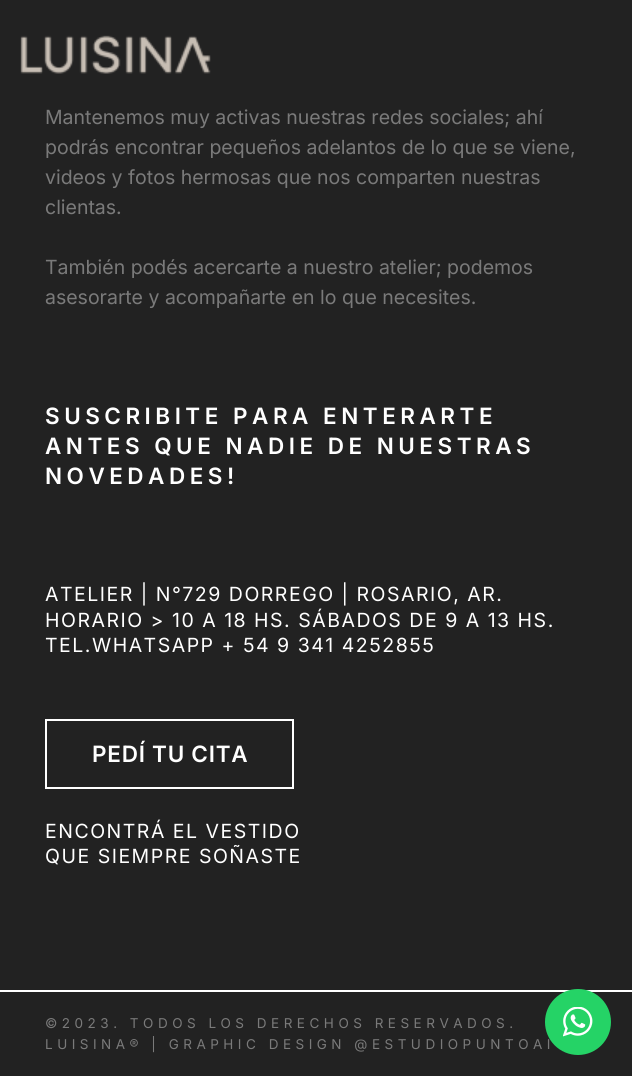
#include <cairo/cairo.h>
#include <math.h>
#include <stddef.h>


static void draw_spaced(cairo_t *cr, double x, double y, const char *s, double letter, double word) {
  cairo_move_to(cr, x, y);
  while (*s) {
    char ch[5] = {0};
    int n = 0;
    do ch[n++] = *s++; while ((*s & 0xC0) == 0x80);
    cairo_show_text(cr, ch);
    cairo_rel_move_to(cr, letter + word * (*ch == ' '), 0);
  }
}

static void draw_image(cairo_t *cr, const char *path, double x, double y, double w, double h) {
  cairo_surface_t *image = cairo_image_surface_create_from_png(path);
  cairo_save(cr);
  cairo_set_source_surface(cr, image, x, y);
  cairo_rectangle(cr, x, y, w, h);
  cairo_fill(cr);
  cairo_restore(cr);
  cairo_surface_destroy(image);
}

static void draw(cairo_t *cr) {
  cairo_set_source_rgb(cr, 34 / 255.0, 34 / 255.0, 34 / 255.0);
  cairo_paint(cr);
  draw_image(cr, "images/1.png", 20, 35, 191, 39);
  cairo_rectangle(cr, 46, 720, 247, 68);
  cairo_set_source_rgb(cr, 1, 1, 1);
  cairo_stroke(cr);
  cairo_rectangle(cr, 0, 990, 632, 2);
  cairo_fill(cr);
  cairo_select_font_face(cr, "Inter", CAIRO_FONT_SLANT_NORMAL, CAIRO_FONT_WEIGHT_NORMAL);
  cairo_set_font_size(cr, 19.5);
  cairo_set_source_rgb(cr, 122 / 255.0, 122 / 255.0, 122 / 255.0);
  cairo_move_to(cr, 45, 124);
  cairo_show_text(cr, "Mantenemos muy activas nuestras redes sociales; ahí");
  cairo_move_to(cr, 45, 154);
  cairo_show_text(cr, "podrás encontrar pequeños adelantos de lo que se viene,");
  cairo_move_to(cr, 45, 184);
  cairo_show_text(cr, "videos y fotos hermosas que nos comparten nuestras");
  cairo_move_to(cr, 45, 214);
  cairo_show_text(cr, "clientas.");
  cairo_move_to(cr, 45, 274);
  cairo_show_text(cr, "También podés acercarte a nuestro atelier; podemos");
  cairo_move_to(cr, 45, 304);
  cairo_show_text(cr, "asesorarte y acompañarte en lo que necesites.");
  cairo_select_font_face(cr, "Inter SemiBold", CAIRO_FONT_SLANT_NORMAL, CAIRO_FONT_WEIGHT_NORMAL);
  cairo_set_font_size(cr, 22.5);
  cairo_set_source_rgb(cr, 1, 1, 1);
  draw_spaced(cr, 45, 424, "SUSCRIBITE PARA ENTERARTE", 4.5, 0);
  draw_spaced(cr, 45, 454, "ANTES QUE NADIE DE NUESTRAS", 4.5, 0);
  draw_spaced(cr, 45, 484, "NOVEDADES!", 4.5, 0);
  cairo_select_font_face(cr, "Inter", CAIRO_FONT_SLANT_NORMAL, CAIRO_FONT_WEIGHT_NORMAL);
  cairo_set_font_size(cr, 19.5);
  draw_spaced(cr, 45, 601, "ATELIER | N°729 DORREGO | ROSARIO, AR.", 1.5, 0);
  draw_spaced(cr, 45, 627, "HORARIO > 10 A 18 HS. SÁBADOS DE 9 A 13 HS.", 1.5, 0);
  draw_spaced(cr, 45, 652, "TEL.WHATSAPP + 54 9 341 4252855", 1.5, 0);
  cairo_select_font_face(cr, "Inter SemiBold", CAIRO_FONT_SLANT_NORMAL, CAIRO_FONT_WEIGHT_NORMAL);
  cairo_set_font_size(cr, 22.5);
  draw_spaced(cr, 92, 762, "PEDÍ TU CITA", 0.75, 0);
  cairo_select_font_face(cr, "Inter", CAIRO_FONT_SLANT_NORMAL, CAIRO_FONT_WEIGHT_NORMAL);
  cairo_set_font_size(cr, 19.5);
  draw_spaced(cr, 45, 838, "ENCONTRÁ EL VESTIDO", 1.5, 0);
  draw_spaced(cr, 45, 863, "QUE SIEMPRE SOÑASTE", 1.5, 0);
  cairo_set_font_size(cr, 13.5);
  cairo_set_source_rgb(cr, 122 / 255.0, 122 / 255.0, 122 / 255.0);
  draw_spaced(cr, 45, 1028, "©2023. TODOS LOS DERECHOS RESERVADOS.", 4.5, 0);
  draw_spaced(cr, 45, 1049, "LUISINA® | GRAPHIC DESIGN @ESTUDIOPUNTOAI", 4.5, 0);
  cairo_set_source_rgb(cr, 37 / 255.0, 211 / 255.0, 102 / 255.0);
  cairo_new_path(cr);
  cairo_arc(cr, 578, 1022, 33, 0, 2 * M_PI);
  cairo_fill(cr);
  draw_image(cr, "images/2.png", 563, 1007, 30, 30);
}

int main(void) {
  cairo_surface_t *surface = cairo_image_surface_create(CAIRO_FORMAT_RGB24, 632, 1076);
  cairo_t *cr = cairo_create(surface);
  cairo_font_options_t *options = cairo_font_options_create();
  cairo_font_options_set_hint_metrics(options, CAIRO_HINT_METRICS_OFF);
  cairo_font_options_set_hint_style(options, CAIRO_HINT_STYLE_NONE);
  cairo_set_font_options(cr, options);
  cairo_set_miter_limit(cr, 4);
  draw(cr);
  cairo_surface_write_to_png(surface, "out.png");
  cairo_font_options_destroy(options);
  cairo_destroy(cr);
  cairo_surface_destroy(surface);
  return 0;
}
